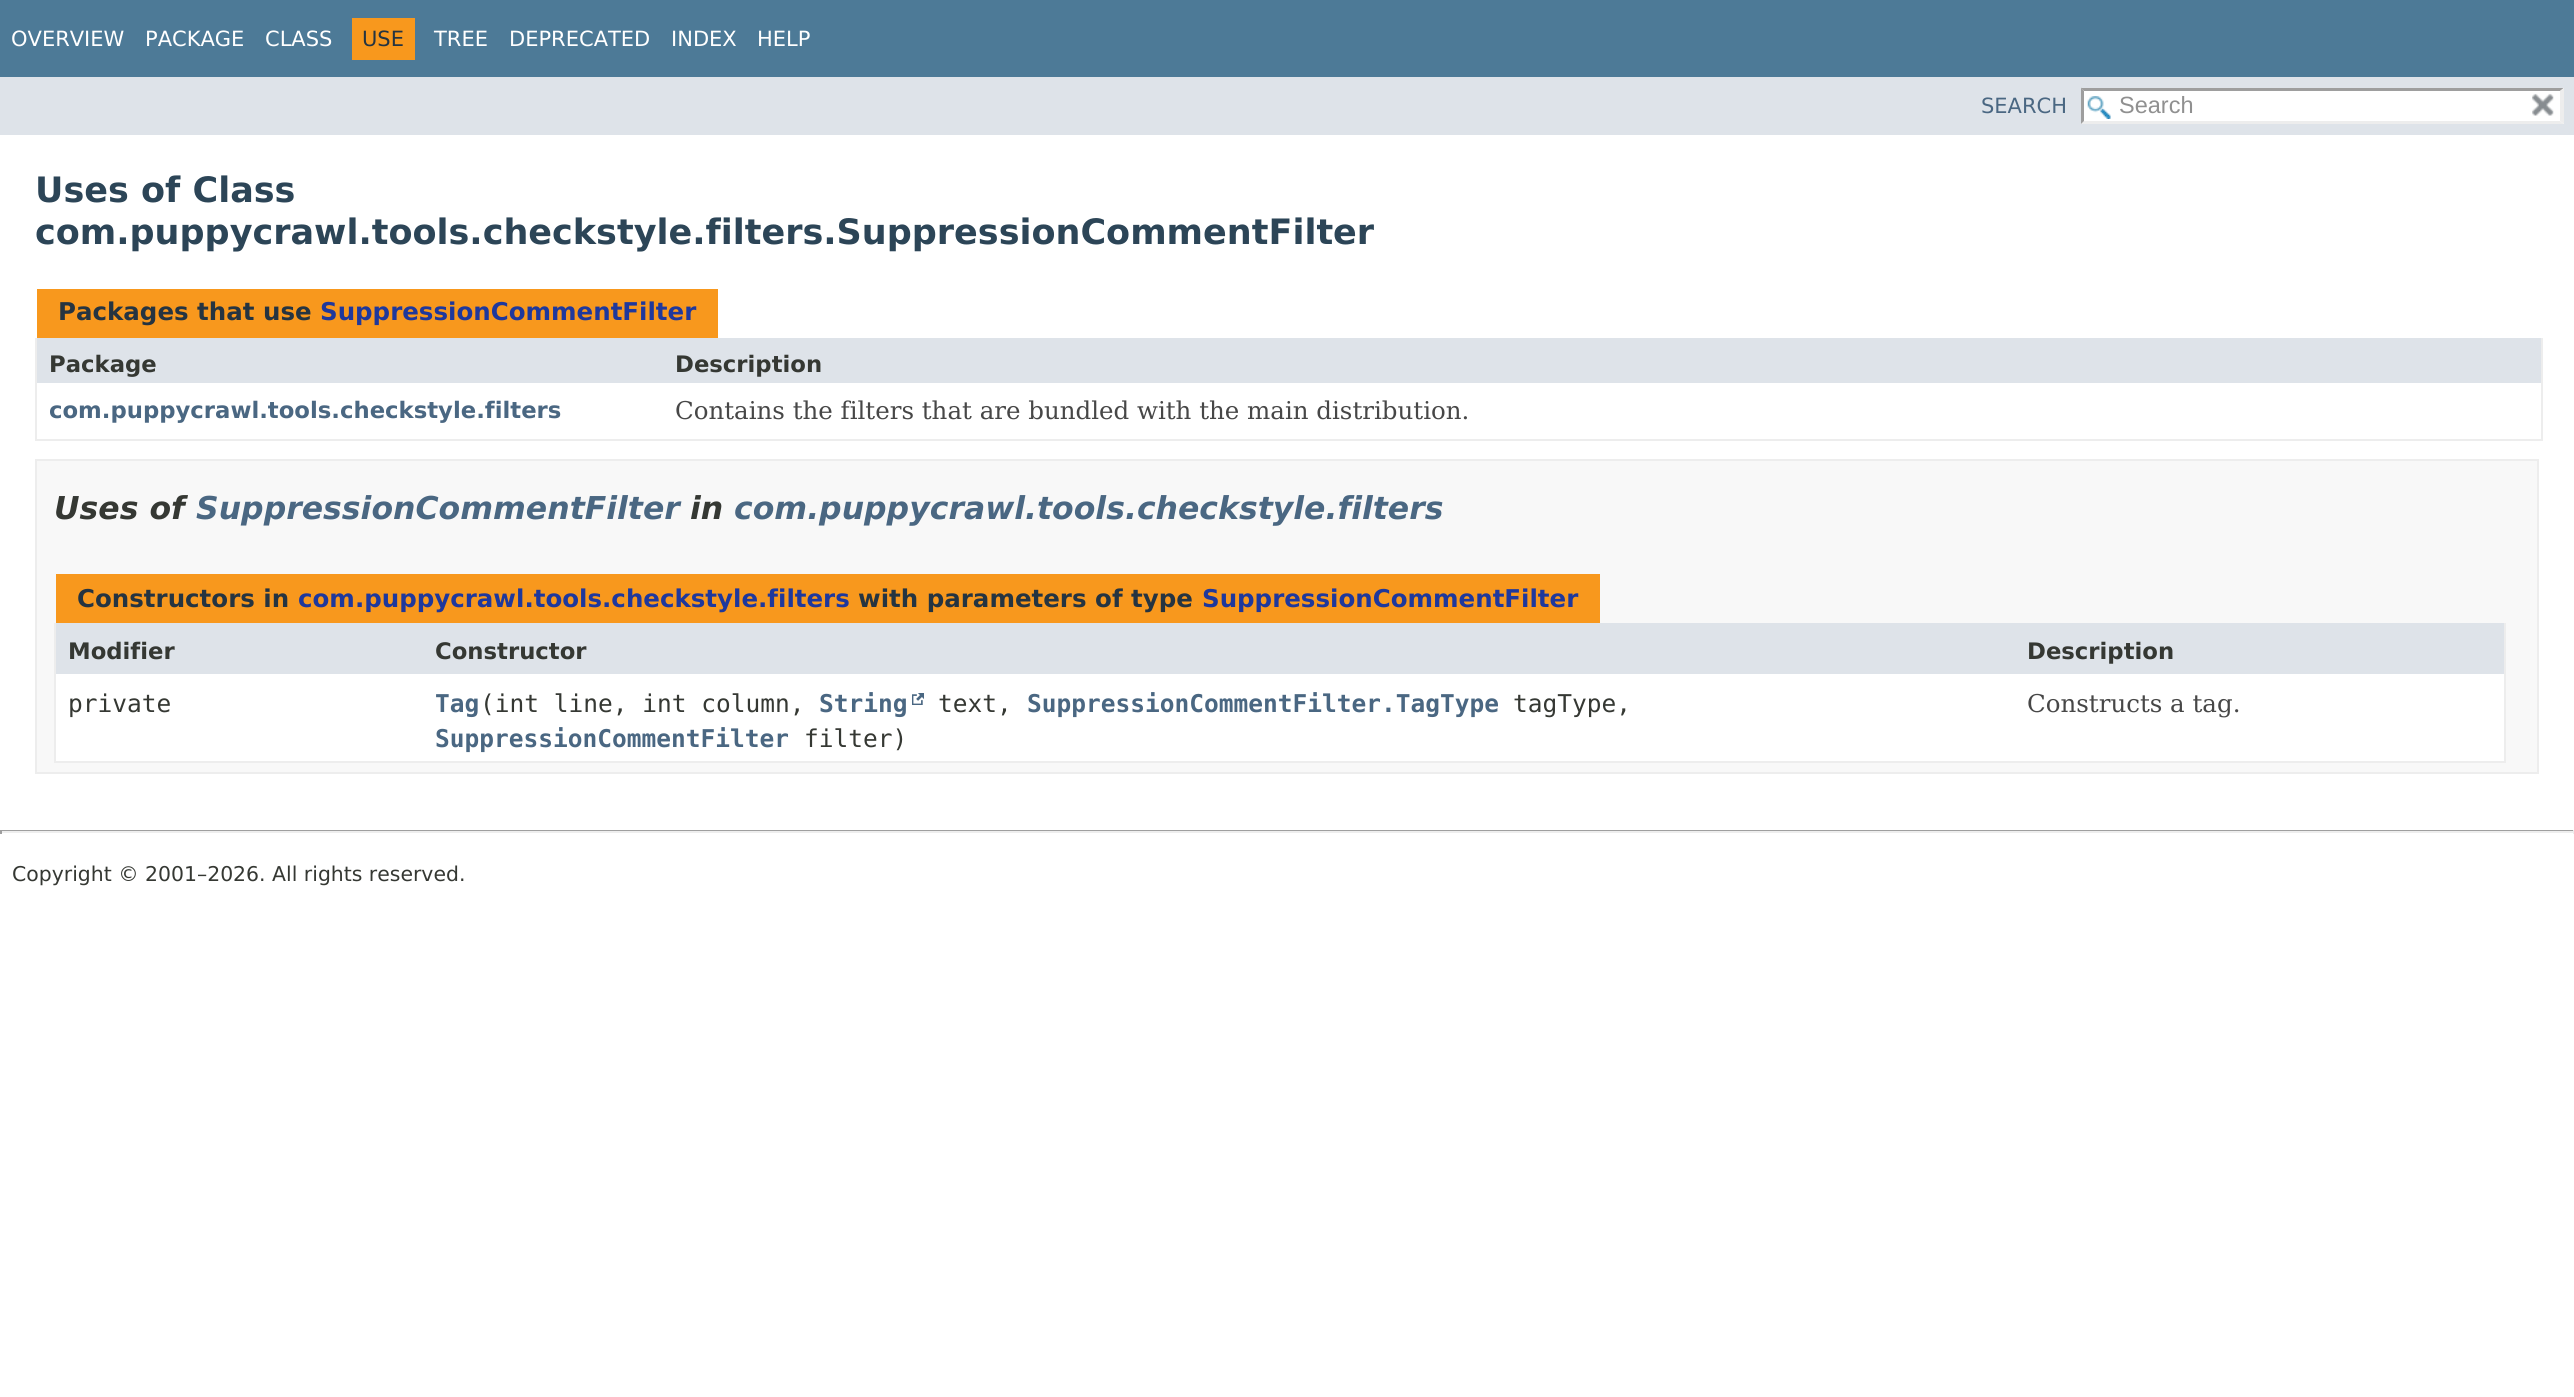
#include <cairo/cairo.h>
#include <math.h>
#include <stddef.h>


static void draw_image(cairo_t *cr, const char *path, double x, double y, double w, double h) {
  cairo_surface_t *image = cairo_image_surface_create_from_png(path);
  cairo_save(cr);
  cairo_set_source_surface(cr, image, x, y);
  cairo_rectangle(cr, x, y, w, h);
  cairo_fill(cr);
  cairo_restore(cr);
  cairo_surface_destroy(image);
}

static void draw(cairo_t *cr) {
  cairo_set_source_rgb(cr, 1, 1, 1);
  cairo_paint(cr);
  cairo_set_source_rgb(cr, 77 / 255.0, 122 / 255.0, 151 / 255.0);
  cairo_rectangle(cr, 0, 0, 2574, 77);
  cairo_fill(cr);
  cairo_set_source_rgb(cr, 248 / 255.0, 152 / 255.0, 29 / 255.0);
  cairo_rectangle(cr, 352, 18, 63, 42);
  cairo_fill(cr);
  cairo_set_source_rgb(cr, 222 / 255.0, 227 / 255.0, 233 / 255.0);
  cairo_rectangle(cr, 0, 77, 2574, 58);
  cairo_fill(cr);
  cairo_set_source_rgb(cr, 1, 1, 1);
  cairo_rectangle(cr, 2081, 88, 483, 36);
  cairo_fill(cr);
  draw_image(cr, "images/1.png", 2087, 96, 24, 23);
  cairo_set_source_rgb(cr, 158 / 255.0, 158 / 255.0, 158 / 255.0);
  cairo_new_path(cr);
  cairo_move_to(cr, 2081, 88);
  cairo_line_to(cr, 2564, 88);
  cairo_line_to(cr, 2560, 91);
  cairo_line_to(cr, 2084, 91);
  cairo_close_path(cr);
  cairo_fill(cr);
  cairo_set_source_rgb(cr, 237 / 255.0, 237 / 255.0, 237 / 255.0);
  cairo_new_path(cr);
  cairo_move_to(cr, 2564, 87.5);
  cairo_line_to(cr, 2564, 124);
  cairo_line_to(cr, 2560, 121);
  cairo_line_to(cr, 2560, 91);
  cairo_close_path(cr);
  cairo_fill(cr);
  cairo_new_path(cr);
  cairo_move_to(cr, 2564, 124);
  cairo_line_to(cr, 2081, 124);
  cairo_line_to(cr, 2084, 121);
  cairo_line_to(cr, 2560, 121);
  cairo_close_path(cr);
  cairo_fill(cr);
  cairo_set_source_rgb(cr, 158 / 255.0, 158 / 255.0, 158 / 255.0);
  cairo_new_path(cr);
  cairo_move_to(cr, 2081, 124);
  cairo_line_to(cr, 2081, 87.5);
  cairo_line_to(cr, 2084, 91);
  cairo_line_to(cr, 2084, 121);
  cairo_close_path(cr);
  cairo_fill(cr);
  draw_image(cr, "images/2.png", 2532, 93, 22, 23);
  cairo_set_source_rgb(cr, 248 / 255.0, 152 / 255.0, 29 / 255.0);
  cairo_rectangle(cr, 37, 289, 681, 49);
  cairo_fill(cr);
  cairo_set_source_rgb(cr, 237 / 255.0, 237 / 255.0, 237 / 255.0);
  cairo_rectangle(cr, 2541, 338, 2, 103);
  cairo_fill(cr);
  cairo_rectangle(cr, 35, 439, 2508, 2);
  cairo_fill(cr);
  cairo_rectangle(cr, 35, 338, 2, 103);
  cairo_fill(cr);
  cairo_set_source_rgb(cr, 222 / 255.0, 227 / 255.0, 233 / 255.0);
  cairo_rectangle(cr, 37, 338, 2504, 45);
  cairo_fill(cr);
  cairo_set_source_rgb(cr, 248 / 255.0, 248 / 255.0, 248 / 255.0);
  cairo_rectangle(cr, 36, 460, 2502, 313);
  cairo_fill_preserve(cr);
  cairo_set_source_rgb(cr, 237 / 255.0, 237 / 255.0, 237 / 255.0);
  cairo_stroke(cr);
  cairo_set_source_rgb(cr, 248 / 255.0, 152 / 255.0, 29 / 255.0);
  cairo_rectangle(cr, 56, 574, 1544, 49);
  cairo_fill(cr);
  cairo_set_source_rgb(cr, 237 / 255.0, 237 / 255.0, 237 / 255.0);
  cairo_rectangle(cr, 2504, 623, 2, 140);
  cairo_fill(cr);
  cairo_rectangle(cr, 54, 761, 2452, 2);
  cairo_fill(cr);
  cairo_rectangle(cr, 54, 623, 2, 140);
  cairo_fill(cr);
  cairo_set_source_rgb(cr, 222 / 255.0, 227 / 255.0, 233 / 255.0);
  cairo_rectangle(cr, 56, 623, 2448, 51);
  cairo_fill(cr);
  cairo_set_source_rgb(cr, 1, 1, 1);
  cairo_rectangle(cr, 56, 674, 2448, 87);
  cairo_fill(cr);
  draw_image(cr, "images/3.png", 912, 693, 12, 12);
  cairo_set_source_rgb(cr, 159 / 255.0, 159 / 255.0, 159 / 255.0);
  cairo_rectangle(cr, 0, 830, 2574, 1);
  cairo_fill(cr);
  cairo_set_source_rgb(cr, 238 / 255.0, 238 / 255.0, 238 / 255.0);
  cairo_rectangle(cr, 2573, 830, 1, 4);
  cairo_fill(cr);
  cairo_rectangle(cr, 0, 831, 2574, 2);
  cairo_fill(cr);
  cairo_set_source_rgb(cr, 159 / 255.0, 159 / 255.0, 159 / 255.0);
  cairo_rectangle(cr, 0, 830, 2, 4);
  cairo_fill(cr);
  cairo_select_font_face(cr, "DejaVu Sans", CAIRO_FONT_SLANT_NORMAL, CAIRO_FONT_WEIGHT_NORMAL);
  cairo_set_font_size(cr, 21);
  cairo_set_source_rgb(cr, 1, 1, 1);
  cairo_move_to(cr, 11, 46);
  cairo_show_text(cr, "OVERVIEW");
  cairo_move_to(cr, 145, 46);
  cairo_show_text(cr, "PACKAGE");
  cairo_move_to(cr, 265, 46);
  cairo_show_text(cr, "CLASS");
  cairo_set_source_rgb(cr, 37 / 255.0, 52 / 255.0, 65 / 255.0);
  cairo_move_to(cr, 362, 46);
  cairo_show_text(cr, "USE");
  cairo_set_source_rgb(cr, 1, 1, 1);
  cairo_move_to(cr, 434, 46);
  cairo_show_text(cr, "TREE");
  cairo_move_to(cr, 509, 46);
  cairo_show_text(cr, "DEPRECATED");
  cairo_move_to(cr, 671, 46);
  cairo_show_text(cr, "INDEX");
  cairo_move_to(cr, 757, 46);
  cairo_show_text(cr, "HELP");
  cairo_set_source_rgb(cr, 74 / 255.0, 103 / 255.0, 130 / 255.0);
  cairo_move_to(cr, 1981, 113);
  cairo_show_text(cr, "SEARCH");
  cairo_select_font_face(cr, "Liberation Sans", CAIRO_FONT_SLANT_NORMAL, CAIRO_FONT_WEIGHT_NORMAL);
  cairo_set_font_size(cr, 23.5);
  cairo_set_source_rgb(cr, 144 / 255.0, 144 / 255.0, 144 / 255.0);
  cairo_move_to(cr, 2119, 113);
  cairo_show_text(cr, "Search");
  cairo_select_font_face(cr, "DejaVu Sans", CAIRO_FONT_SLANT_NORMAL, CAIRO_FONT_WEIGHT_BOLD);
  cairo_set_font_size(cr, 35);
  cairo_set_source_rgb(cr, 44 / 255.0, 69 / 255.0, 87 / 255.0);
  cairo_move_to(cr, 35, 202);
  cairo_show_text(cr, "Uses of Class");
  cairo_move_to(cr, 35, 244);
  cairo_show_text(cr, "com.puppycrawl.tools.checkstyle.filters.SuppressionCommentFilter");
  cairo_set_font_size(cr, 24.5);
  cairo_set_source_rgb(cr, 37 / 255.0, 52 / 255.0, 65 / 255.0);
  cairo_move_to(cr, 58, 320);
  cairo_show_text(cr, "Packages that use");
  cairo_set_source_rgb(cr, 31 / 255.0, 56 / 255.0, 156 / 255.0);
  cairo_move_to(cr, 320, 320);
  cairo_show_text(cr, "SuppressionCommentFilter");
  cairo_set_font_size(cr, 22.75);
  cairo_set_source_rgb(cr, 53 / 255.0, 56 / 255.0, 51 / 255.0);
  cairo_move_to(cr, 49, 372);
  cairo_show_text(cr, "Package");
  cairo_move_to(cr, 675, 372);
  cairo_show_text(cr, "Description");
  cairo_set_source_rgb(cr, 74 / 255.0, 103 / 255.0, 130 / 255.0);
  cairo_move_to(cr, 49, 418);
  cairo_show_text(cr, "com.puppycrawl.tools.checkstyle.filters");
  cairo_select_font_face(cr, "DejaVu Serif", CAIRO_FONT_SLANT_NORMAL, CAIRO_FONT_WEIGHT_NORMAL);
  cairo_set_font_size(cr, 24.5);
  cairo_set_source_rgb(cr, 71 / 255.0, 71 / 255.0, 71 / 255.0);
  cairo_move_to(cr, 675, 419);
  cairo_show_text(cr, "Contains the filters that are bundled with the main distribution.");
  cairo_select_font_face(cr, "DejaVu Sans", CAIRO_FONT_SLANT_ITALIC, CAIRO_FONT_WEIGHT_BOLD);
  cairo_set_font_size(cr, 31.5);
  cairo_set_source_rgb(cr, 53 / 255.0, 56 / 255.0, 51 / 255.0);
  cairo_move_to(cr, 54, 519);
  cairo_show_text(cr, "Uses of");
  cairo_set_source_rgb(cr, 74 / 255.0, 103 / 255.0, 130 / 255.0);
  cairo_move_to(cr, 196, 519);
  cairo_show_text(cr, "SuppressionCommentFilter");
  cairo_set_source_rgb(cr, 53 / 255.0, 56 / 255.0, 51 / 255.0);
  cairo_move_to(cr, 690, 519);
  cairo_show_text(cr, "in");
  cairo_set_source_rgb(cr, 74 / 255.0, 103 / 255.0, 130 / 255.0);
  cairo_move_to(cr, 734, 519);
  cairo_show_text(cr, "com.puppycrawl.tools.checkstyle.filters");
  cairo_select_font_face(cr, "DejaVu Sans", CAIRO_FONT_SLANT_NORMAL, CAIRO_FONT_WEIGHT_BOLD);
  cairo_set_font_size(cr, 24.5);
  cairo_set_source_rgb(cr, 37 / 255.0, 52 / 255.0, 65 / 255.0);
  cairo_move_to(cr, 77, 607);
  cairo_show_text(cr, "Constructors in");
  cairo_set_source_rgb(cr, 31 / 255.0, 56 / 255.0, 156 / 255.0);
  cairo_move_to(cr, 298, 607);
  cairo_show_text(cr, "com.puppycrawl.tools.checkstyle.filters");
  cairo_set_source_rgb(cr, 37 / 255.0, 52 / 255.0, 65 / 255.0);
  cairo_move_to(cr, 858, 607);
  cairo_show_text(cr, "with parameters of type");
  cairo_set_source_rgb(cr, 31 / 255.0, 56 / 255.0, 156 / 255.0);
  cairo_move_to(cr, 1202, 607);
  cairo_show_text(cr, "SuppressionCommentFilter");
  cairo_set_font_size(cr, 22.75);
  cairo_set_source_rgb(cr, 53 / 255.0, 56 / 255.0, 51 / 255.0);
  cairo_move_to(cr, 68, 659);
  cairo_show_text(cr, "Modifier");
  cairo_move_to(cr, 435, 659);
  cairo_show_text(cr, "Constructor");
  cairo_move_to(cr, 2027, 659);
  cairo_show_text(cr, "Description");
  cairo_select_font_face(cr, "DejaVu Sans Mono", CAIRO_FONT_SLANT_NORMAL, CAIRO_FONT_WEIGHT_NORMAL);
  cairo_set_font_size(cr, 24.5);
  cairo_move_to(cr, 68, 712);
  cairo_show_text(cr, "private");
  cairo_select_font_face(cr, "DejaVu Sans Mono", CAIRO_FONT_SLANT_NORMAL, CAIRO_FONT_WEIGHT_BOLD);
  cairo_set_source_rgb(cr, 74 / 255.0, 103 / 255.0, 130 / 255.0);
  cairo_move_to(cr, 435, 712);
  cairo_show_text(cr, "Tag");
  cairo_select_font_face(cr, "DejaVu Sans Mono", CAIRO_FONT_SLANT_NORMAL, CAIRO_FONT_WEIGHT_NORMAL);
  cairo_set_source_rgb(cr, 53 / 255.0, 56 / 255.0, 51 / 255.0);
  cairo_move_to(cr, 480, 712);
  cairo_show_text(cr, "(int line, int column,");
  cairo_select_font_face(cr, "DejaVu Sans Mono", CAIRO_FONT_SLANT_NORMAL, CAIRO_FONT_WEIGHT_BOLD);
  cairo_set_source_rgb(cr, 74 / 255.0, 103 / 255.0, 130 / 255.0);
  cairo_move_to(cr, 819, 712);
  cairo_show_text(cr, "String");
  cairo_select_font_face(cr, "DejaVu Sans Mono", CAIRO_FONT_SLANT_NORMAL, CAIRO_FONT_WEIGHT_NORMAL);
  cairo_set_source_rgb(cr, 53 / 255.0, 56 / 255.0, 51 / 255.0);
  cairo_move_to(cr, 938, 712);
  cairo_show_text(cr, "text,");
  cairo_select_font_face(cr, "DejaVu Sans Mono", CAIRO_FONT_SLANT_NORMAL, CAIRO_FONT_WEIGHT_BOLD);
  cairo_set_source_rgb(cr, 74 / 255.0, 103 / 255.0, 130 / 255.0);
  cairo_move_to(cr, 1027, 712);
  cairo_show_text(cr, "SuppressionCommentFilter.TagType");
  cairo_select_font_face(cr, "DejaVu Sans Mono", CAIRO_FONT_SLANT_NORMAL, CAIRO_FONT_WEIGHT_NORMAL);
  cairo_set_source_rgb(cr, 53 / 255.0, 56 / 255.0, 51 / 255.0);
  cairo_move_to(cr, 1513, 712);
  cairo_show_text(cr, "tagType,");
  cairo_select_font_face(cr, "DejaVu Sans Mono", CAIRO_FONT_SLANT_NORMAL, CAIRO_FONT_WEIGHT_BOLD);
  cairo_set_source_rgb(cr, 74 / 255.0, 103 / 255.0, 130 / 255.0);
  cairo_move_to(cr, 435, 747);
  cairo_show_text(cr, "SuppressionCommentFilter");
  cairo_select_font_face(cr, "DejaVu Sans Mono", CAIRO_FONT_SLANT_NORMAL, CAIRO_FONT_WEIGHT_NORMAL);
  cairo_set_source_rgb(cr, 53 / 255.0, 56 / 255.0, 51 / 255.0);
  cairo_move_to(cr, 804, 747);
  cairo_show_text(cr, "filter)");
  cairo_select_font_face(cr, "DejaVu Serif", CAIRO_FONT_SLANT_NORMAL, CAIRO_FONT_WEIGHT_NORMAL);
  cairo_set_source_rgb(cr, 71 / 255.0, 71 / 255.0, 71 / 255.0);
  cairo_move_to(cr, 2027, 712);
  cairo_show_text(cr, "Constructs a tag.");
  cairo_select_font_face(cr, "DejaVu Sans", CAIRO_FONT_SLANT_NORMAL, CAIRO_FONT_WEIGHT_NORMAL);
  cairo_set_font_size(cr, 20.4);
  cairo_set_source_rgb(cr, 53 / 255.0, 56 / 255.0, 51 / 255.0);
  cairo_move_to(cr, 12, 881);
  cairo_show_text(cr, "Copyright © 2001–2026. All rights reserved.");
}

int main(void) {
  cairo_surface_t *surface = cairo_image_surface_create(CAIRO_FORMAT_RGB24, 2574, 1397);
  cairo_t *cr = cairo_create(surface);
  cairo_font_options_t *options = cairo_font_options_create();
  cairo_font_options_set_hint_metrics(options, CAIRO_HINT_METRICS_OFF);
  cairo_font_options_set_hint_style(options, CAIRO_HINT_STYLE_NONE);
  cairo_set_font_options(cr, options);
  cairo_set_miter_limit(cr, 4);
  draw(cr);
  cairo_surface_write_to_png(surface, "out.png");
  cairo_font_options_destroy(options);
  cairo_destroy(cr);
  cairo_surface_destroy(surface);
  return 0;
}
